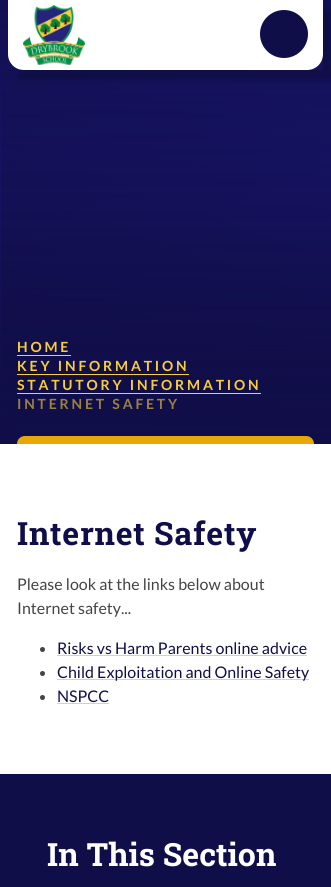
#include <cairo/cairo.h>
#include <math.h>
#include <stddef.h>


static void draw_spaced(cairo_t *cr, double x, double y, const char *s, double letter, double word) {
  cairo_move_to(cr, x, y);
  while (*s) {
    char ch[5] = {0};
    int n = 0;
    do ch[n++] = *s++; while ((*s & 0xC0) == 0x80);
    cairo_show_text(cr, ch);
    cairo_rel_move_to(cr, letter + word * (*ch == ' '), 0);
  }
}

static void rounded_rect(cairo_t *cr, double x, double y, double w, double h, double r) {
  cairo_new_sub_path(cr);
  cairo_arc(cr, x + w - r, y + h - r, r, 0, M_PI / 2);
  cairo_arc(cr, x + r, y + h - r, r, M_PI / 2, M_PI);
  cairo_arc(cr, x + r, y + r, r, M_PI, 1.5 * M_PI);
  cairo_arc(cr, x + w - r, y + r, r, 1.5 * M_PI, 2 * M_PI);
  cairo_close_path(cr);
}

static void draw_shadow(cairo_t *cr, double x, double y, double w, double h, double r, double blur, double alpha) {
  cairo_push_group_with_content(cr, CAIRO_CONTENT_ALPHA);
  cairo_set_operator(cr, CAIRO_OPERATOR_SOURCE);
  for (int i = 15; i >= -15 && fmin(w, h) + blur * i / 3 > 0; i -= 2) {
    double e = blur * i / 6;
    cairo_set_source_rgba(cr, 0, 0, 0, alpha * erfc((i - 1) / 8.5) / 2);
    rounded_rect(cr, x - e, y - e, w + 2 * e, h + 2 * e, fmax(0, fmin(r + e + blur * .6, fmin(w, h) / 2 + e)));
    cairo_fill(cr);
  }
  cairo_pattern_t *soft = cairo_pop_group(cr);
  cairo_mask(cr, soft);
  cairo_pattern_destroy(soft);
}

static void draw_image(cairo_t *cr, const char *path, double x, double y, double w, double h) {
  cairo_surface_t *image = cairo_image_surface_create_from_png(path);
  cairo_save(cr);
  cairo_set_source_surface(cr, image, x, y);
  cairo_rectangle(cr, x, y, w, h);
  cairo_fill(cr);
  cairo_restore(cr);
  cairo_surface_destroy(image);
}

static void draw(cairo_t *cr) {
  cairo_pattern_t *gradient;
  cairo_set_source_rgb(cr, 1, 1, 1);
  cairo_paint(cr);
  gradient = cairo_pattern_create_linear(256, -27, 75, 471);
  cairo_pattern_add_color_stop_rgba(gradient, 0, 30 / 255.0, 26 / 255.0, 136 / 255.0, 1);
  cairo_pattern_add_color_stop_rgba(gradient, 1, 16 / 255.0, 14 / 255.0, 72 / 255.0, 1);
  cairo_set_source(cr, gradient);
  cairo_pattern_destroy(gradient);
  cairo_rectangle(cr, 0, 0, 331, 444);
  cairo_fill(cr);
  gradient = cairo_pattern_create_linear(166, 444, 166, -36);
  cairo_pattern_add_color_stop_rgba(gradient, 0, 16 / 255.0, 14 / 255.0, 72 / 255.0, 1);
  cairo_pattern_add_color_stop_rgba(gradient, 1, 16 / 255.0, 14 / 255.0, 72 / 255.0, 0);
  cairo_set_source(cr, gradient);
  cairo_pattern_destroy(gradient);
  cairo_rectangle(cr, 1, 0, 330, 444);
  cairo_fill(cr);
  gradient = cairo_pattern_create_linear(166, 444, 166, 0);
  cairo_pattern_add_color_stop_rgba(gradient, 0, 16 / 255.0, 14 / 255.0, 72 / 255.0, 0.8);
  cairo_pattern_add_color_stop_rgba(gradient, 0.5, 16 / 255.0, 14 / 255.0, 72 / 255.0, 0);
  cairo_pattern_add_color_stop_rgba(gradient, 1, 16 / 255.0, 14 / 255.0, 72 / 255.0, 0.8);
  cairo_set_source(cr, gradient);
  cairo_pattern_destroy(gradient);
  cairo_rectangle(cr, 0, 0, 331, 417);
  cairo_fill(cr);
  cairo_save(cr);
  cairo_set_fill_rule(cr, CAIRO_FILL_RULE_EVEN_ODD);
  cairo_new_path(cr);
  cairo_move_to(cr, 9, 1);
  cairo_line_to(cr, 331, 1);
  cairo_line_to(cr, 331, 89);
  cairo_line_to(cr, 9, 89);
  cairo_close_path(cr);
  cairo_move_to(cr, 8, 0);
  cairo_line_to(cr, 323, 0);
  cairo_line_to(cr, 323, 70);
  cairo_line_to(cr, 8, 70);
  cairo_close_path(cr);
  cairo_clip(cr);
  cairo_set_source_rgb(cr, 0, 0, 0);
  draw_shadow(cr, 18, 10, 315, 70, 0, 2.5, 0.2);
  cairo_restore(cr);
  cairo_set_source_rgb(cr, 1, 1, 1);
  cairo_new_path(cr);
  cairo_move_to(cr, 8, 0);
  cairo_line_to(cr, 323, 0);
  cairo_line_to(cr, 323, 54);
  cairo_curve_to(cr, 323, 63, 316, 70, 307, 70);
  cairo_line_to(cr, 24, 70);
  cairo_curve_to(cr, 15, 70, 8, 63, 8, 54);
  cairo_close_path(cr);
  cairo_fill(cr);
  draw_image(cr, "images/1.png", 23, 5, 62, 60);
  cairo_set_source_rgb(cr, 16 / 255.0, 14 / 255.0, 72 / 255.0);
  cairo_arc(cr, 284, 34, 24, 0, 2 * M_PI);
  cairo_fill(cr);
  cairo_set_source_rgb(cr, 249 / 255.0, 205 / 255.0, 59 / 255.0);
  cairo_rectangle(cr, 17, 355, 54, 1);
  cairo_fill(cr);
  cairo_rectangle(cr, 17, 374, 172, 1);
  cairo_fill(cr);
  cairo_rectangle(cr, 17, 393, 244, 1);
  cairo_fill(cr);
  cairo_set_source_rgb(cr, 231 / 255.0, 168 / 255.0, 7 / 255.0);
  cairo_new_path(cr);
  cairo_move_to(cr, 25, 436);
  cairo_line_to(cr, 306, 436);
  cairo_curve_to(cr, 310.5, 436, 314, 439.5, 314, 444);
  cairo_line_to(cr, 17, 444);
  cairo_curve_to(cr, 17, 439.5, 20.5, 436, 25, 436);
  cairo_close_path(cr);
  cairo_fill(cr);
  cairo_set_source_rgb(cr, 68 / 255.0, 68 / 255.0, 68 / 255.0);
  cairo_arc(cr, 42.5, 649.5, 2.5, 0, 2 * M_PI);
  cairo_fill(cr);
  cairo_set_source_rgb(cr, 207 / 255.0, 207 / 255.0, 218 / 255.0);
  cairo_rectangle(cr, 57, 655, 250, 1);
  cairo_fill(cr);
  cairo_set_source_rgb(cr, 68 / 255.0, 68 / 255.0, 68 / 255.0);
  cairo_arc(cr, 42.5, 673.5, 2.5, 0, 2 * M_PI);
  cairo_fill(cr);
  cairo_set_source_rgb(cr, 207 / 255.0, 207 / 255.0, 218 / 255.0);
  cairo_rectangle(cr, 57, 679, 252, 1);
  cairo_fill(cr);
  cairo_set_source_rgb(cr, 68 / 255.0, 68 / 255.0, 68 / 255.0);
  cairo_arc(cr, 42.5, 697.5, 2.5, 0, 2 * M_PI);
  cairo_fill(cr);
  cairo_set_source_rgb(cr, 207 / 255.0, 207 / 255.0, 218 / 255.0);
  cairo_rectangle(cr, 57, 703, 52, 1);
  cairo_fill(cr);
  cairo_set_source_rgb(cr, 16 / 255.0, 14 / 255.0, 72 / 255.0);
  cairo_rectangle(cr, 0, 774, 331, 113);
  cairo_fill(cr);
  cairo_select_font_face(cr, "Lato", CAIRO_FONT_SLANT_NORMAL, CAIRO_FONT_WEIGHT_BOLD);
  cairo_set_font_size(cr, 14);
  cairo_set_source_rgb(cr, 249 / 255.0, 205 / 255.0, 59 / 255.0);
  draw_spaced(cr, 17, 352, "HOME", 2.8, 0);
  draw_spaced(cr, 17, 371, "KEY INFORMATION", 2.8, 0);
  draw_spaced(cr, 17, 390, "STATUTORY INFORMATION", 2.8, 0);
  cairo_set_source_rgb(cr, 156 / 255.0, 129 / 255.0, 64 / 255.0);
  draw_spaced(cr, 17, 409, "INTERNET SAFETY", 2.8, 0);
  cairo_select_font_face(cr, "Roboto Slab", CAIRO_FONT_SLANT_NORMAL, CAIRO_FONT_WEIGHT_BOLD);
  cairo_set_font_size(cr, 32);
  cairo_set_source_rgb(cr, 16 / 255.0, 14 / 255.0, 72 / 255.0);
  draw_spaced(cr, 17, 545, "Internet Safety", 0.75, 0);
  cairo_select_font_face(cr, "Lato", CAIRO_FONT_SLANT_NORMAL, CAIRO_FONT_WEIGHT_NORMAL);
  cairo_set_font_size(cr, 16);
  cairo_set_source_rgb(cr, 68 / 255.0, 68 / 255.0, 68 / 255.0);
  cairo_move_to(cr, 17, 590);
  cairo_show_text(cr, "Please look at the links below about");
  cairo_move_to(cr, 17, 614);
  cairo_show_text(cr, "Internet safety...");
  cairo_set_source_rgb(cr, 16 / 255.0, 14 / 255.0, 72 / 255.0);
  cairo_move_to(cr, 57, 654);
  cairo_show_text(cr, "Risks vs Harm Parents online advice");
  cairo_move_to(cr, 57, 678);
  cairo_show_text(cr, "Child Exploitation and Online Safety");
  cairo_move_to(cr, 57, 702);
  cairo_show_text(cr, "NSPCC");
  cairo_select_font_face(cr, "Roboto Slab", CAIRO_FONT_SLANT_NORMAL, CAIRO_FONT_WEIGHT_BOLD);
  cairo_set_font_size(cr, 32);
  cairo_set_source_rgb(cr, 1, 1, 1);
  cairo_move_to(cr, 47, 866);
  cairo_show_text(cr, "In This Section");
}

int main(void) {
  cairo_surface_t *surface = cairo_image_surface_create(CAIRO_FORMAT_RGB24, 331, 887);
  cairo_t *cr = cairo_create(surface);
  cairo_font_options_t *options = cairo_font_options_create();
  cairo_font_options_set_hint_metrics(options, CAIRO_HINT_METRICS_OFF);
  cairo_font_options_set_hint_style(options, CAIRO_HINT_STYLE_NONE);
  cairo_set_font_options(cr, options);
  cairo_set_miter_limit(cr, 4);
  draw(cr);
  cairo_surface_write_to_png(surface, "out.png");
  cairo_font_options_destroy(options);
  cairo_destroy(cr);
  cairo_surface_destroy(surface);
  return 0;
}
